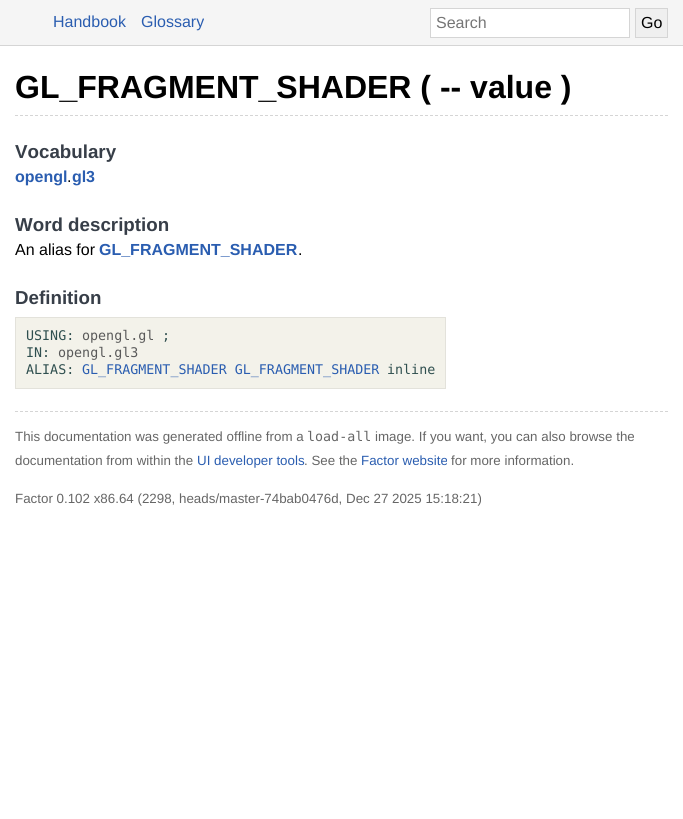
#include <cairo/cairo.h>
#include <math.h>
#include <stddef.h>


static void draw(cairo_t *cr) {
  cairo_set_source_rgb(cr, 1, 1, 1);
  cairo_paint(cr);
  cairo_set_source_rgb(cr, 245 / 255.0, 245 / 255.0, 245 / 255.0);
  cairo_rectangle(cr, 0, 0, 683, 45);
  cairo_fill(cr);
  cairo_set_source_rgb(cr, 213 / 255.0, 213 / 255.0, 213 / 255.0);
  cairo_rectangle(cr, 0, 45, 683, 1);
  cairo_fill(cr);
  cairo_set_source_rgb(cr, 1, 1, 1);
  cairo_rectangle(cr, 430.5, 8.5, 199, 29);
  cairo_fill_preserve(cr);
  cairo_set_source_rgb(cr, 213 / 255.0, 213 / 255.0, 213 / 255.0);
  cairo_set_line_width(cr, 1);
  cairo_stroke(cr);
  cairo_set_source_rgb(cr, 239 / 255.0, 239 / 255.0, 239 / 255.0);
  cairo_rectangle(cr, 635.5, 8.5, 32, 29);
  cairo_fill_preserve(cr);
  cairo_set_source_rgb(cr, 213 / 255.0, 213 / 255.0, 213 / 255.0);
  cairo_stroke(cr);
  cairo_new_path(cr);
  cairo_move_to(cr, 15, 115.5);
  cairo_line_to(cr, 668, 115.5);
  cairo_set_dash(cr, (double[]){3, 2}, 2, 0);
  cairo_stroke(cr);
  cairo_set_source_rgb(cr, 243 / 255.0, 242 / 255.0, 234 / 255.0);
  cairo_rectangle(cr, 15.5, 317.5, 430, 71);
  cairo_fill_preserve(cr);
  cairo_set_source_rgb(cr, 227 / 255.0, 226 / 255.0, 219 / 255.0);
  cairo_set_dash(cr, NULL, 0, 0);
  cairo_stroke(cr);
  cairo_new_path(cr);
  cairo_move_to(cr, 15, 411.5);
  cairo_line_to(cr, 668, 411.5);
  cairo_set_source_rgb(cr, 213 / 255.0, 213 / 255.0, 213 / 255.0);
  cairo_set_dash(cr, (double[]){3, 2}, 2, 0);
  cairo_stroke(cr);
  cairo_select_font_face(cr, "Liberation Sans", CAIRO_FONT_SLANT_NORMAL, CAIRO_FONT_WEIGHT_NORMAL);
  cairo_set_font_size(cr, 16);
  cairo_set_source_rgb(cr, 42 / 255.0, 93 / 255.0, 176 / 255.0);
  cairo_move_to(cr, 53, 27);
  cairo_show_text(cr, "Handbook");
  cairo_move_to(cr, 141, 27);
  cairo_show_text(cr, "Glossary");
  cairo_set_source_rgb(cr, 117 / 255.0, 117 / 255.0, 117 / 255.0);
  cairo_move_to(cr, 436, 28);
  cairo_show_text(cr, "Search");
  cairo_set_source_rgb(cr, 0, 0, 0);
  cairo_move_to(cr, 641, 28);
  cairo_show_text(cr, "Go");
  cairo_select_font_face(cr, "Liberation Sans", CAIRO_FONT_SLANT_NORMAL, CAIRO_FONT_WEIGHT_BOLD);
  cairo_set_font_size(cr, 32);
  cairo_move_to(cr, 15, 98);
  cairo_show_text(cr, "GL_FRAGMENT_SHADER ( -- value )");
  cairo_set_font_size(cr, 18.75);
  cairo_set_source_rgb(cr, 55 / 255.0, 62 / 255.0, 72 / 255.0);
  cairo_move_to(cr, 15, 158);
  cairo_show_text(cr, "Vocabulary");
  cairo_set_font_size(cr, 16);
  cairo_set_source_rgb(cr, 42 / 255.0, 93 / 255.0, 176 / 255.0);
  cairo_move_to(cr, 15, 182);
  cairo_show_text(cr, "opengl gl3");
  cairo_select_font_face(cr, "Liberation Sans", CAIRO_FONT_SLANT_NORMAL, CAIRO_FONT_WEIGHT_NORMAL);
  cairo_set_source_rgb(cr, 0, 0, 0);
  cairo_move_to(cr, 67, 182);
  cairo_show_text(cr, ".");
  cairo_select_font_face(cr, "Liberation Sans", CAIRO_FONT_SLANT_NORMAL, CAIRO_FONT_WEIGHT_BOLD);
  cairo_set_font_size(cr, 18.75);
  cairo_set_source_rgb(cr, 55 / 255.0, 62 / 255.0, 72 / 255.0);
  cairo_move_to(cr, 15, 231);
  cairo_show_text(cr, "Word description");
  cairo_select_font_face(cr, "Liberation Sans", CAIRO_FONT_SLANT_NORMAL, CAIRO_FONT_WEIGHT_NORMAL);
  cairo_set_font_size(cr, 16);
  cairo_set_source_rgb(cr, 0, 0, 0);
  cairo_move_to(cr, 15, 255);
  cairo_show_text(cr, "An alias for");
  cairo_select_font_face(cr, "Liberation Sans", CAIRO_FONT_SLANT_NORMAL, CAIRO_FONT_WEIGHT_BOLD);
  cairo_set_source_rgb(cr, 42 / 255.0, 93 / 255.0, 176 / 255.0);
  cairo_move_to(cr, 99, 255);
  cairo_show_text(cr, "GL_FRAGMENT_SHADER");
  cairo_select_font_face(cr, "Liberation Sans", CAIRO_FONT_SLANT_NORMAL, CAIRO_FONT_WEIGHT_NORMAL);
  cairo_set_source_rgb(cr, 0, 0, 0);
  cairo_move_to(cr, 298, 255);
  cairo_show_text(cr, ".");
  cairo_select_font_face(cr, "Liberation Sans", CAIRO_FONT_SLANT_NORMAL, CAIRO_FONT_WEIGHT_BOLD);
  cairo_set_font_size(cr, 18.75);
  cairo_set_source_rgb(cr, 55 / 255.0, 62 / 255.0, 72 / 255.0);
  cairo_move_to(cr, 15, 304);
  cairo_show_text(cr, "Definition");
  cairo_select_font_face(cr, "DejaVu Sans Mono", CAIRO_FONT_SLANT_NORMAL, CAIRO_FONT_WEIGHT_NORMAL);
  cairo_set_font_size(cr, 13.35);
  cairo_set_source_rgb(cr, 47 / 255.0, 79 / 255.0, 79 / 255.0);
  cairo_move_to(cr, 26, 340);
  cairo_show_text(cr, "USING:");
  cairo_set_source_rgb(cr, 89 / 255.0, 89 / 255.0, 89 / 255.0);
  cairo_move_to(cr, 82, 340);
  cairo_show_text(cr, "opengl.gl");
  cairo_set_source_rgb(cr, 47 / 255.0, 79 / 255.0, 79 / 255.0);
  cairo_move_to(cr, 162, 340);
  cairo_show_text(cr, ";");
  cairo_move_to(cr, 26, 357);
  cairo_show_text(cr, "IN:");
  cairo_set_source_rgb(cr, 89 / 255.0, 89 / 255.0, 89 / 255.0);
  cairo_move_to(cr, 58, 357);
  cairo_show_text(cr, "opengl.gl3");
  cairo_set_source_rgb(cr, 47 / 255.0, 79 / 255.0, 79 / 255.0);
  cairo_move_to(cr, 26, 374);
  cairo_show_text(cr, "ALIAS:");
  cairo_set_source_rgb(cr, 42 / 255.0, 93 / 255.0, 176 / 255.0);
  cairo_move_to(cr, 82, 374);
  cairo_show_text(cr, "GL_FRAGMENT_SHADER GL_FRAGMENT_SHADER");
  cairo_set_source_rgb(cr, 47 / 255.0, 79 / 255.0, 79 / 255.0);
  cairo_move_to(cr, 387, 374);
  cairo_show_text(cr, "inline");
  cairo_select_font_face(cr, "Liberation Sans", CAIRO_FONT_SLANT_NORMAL, CAIRO_FONT_WEIGHT_NORMAL);
  cairo_set_source_rgb(cr, 102 / 255.0, 102 / 255.0, 102 / 255.0);
  cairo_move_to(cr, 15, 441);
  cairo_show_text(cr, "This documentation was generated offline from a");
  cairo_select_font_face(cr, "DejaVu Sans Mono", CAIRO_FONT_SLANT_NORMAL, CAIRO_FONT_WEIGHT_NORMAL);
  cairo_move_to(cr, 307, 441);
  cairo_show_text(cr, "load-all");
  cairo_select_font_face(cr, "Liberation Sans", CAIRO_FONT_SLANT_NORMAL, CAIRO_FONT_WEIGHT_NORMAL);
  cairo_move_to(cr, 375, 441);
  cairo_show_text(cr, "image. If you want, you can also browse the");
  cairo_move_to(cr, 15, 465);
  cairo_show_text(cr, "documentation from within the");
  cairo_set_source_rgb(cr, 42 / 255.0, 93 / 255.0, 176 / 255.0);
  cairo_move_to(cr, 197, 465);
  cairo_show_text(cr, "UI developer tools");
  cairo_set_source_rgb(cr, 102 / 255.0, 102 / 255.0, 102 / 255.0);
  cairo_move_to(cr, 304, 465);
  cairo_show_text(cr, ". See the");
  cairo_set_source_rgb(cr, 42 / 255.0, 93 / 255.0, 176 / 255.0);
  cairo_move_to(cr, 361, 465);
  cairo_show_text(cr, "Factor website");
  cairo_set_source_rgb(cr, 102 / 255.0, 102 / 255.0, 102 / 255.0);
  cairo_move_to(cr, 451, 465);
  cairo_show_text(cr, "for more information.");
  cairo_move_to(cr, 15, 503);
  cairo_show_text(cr, "Factor 0.102 x86.64 (2298, heads/master-74bab0476d, Dec 27 2025 15:18:21)");
}

int main(void) {
  cairo_surface_t *surface = cairo_image_surface_create(CAIRO_FORMAT_RGB24, 683, 819);
  cairo_t *cr = cairo_create(surface);
  cairo_font_options_t *options = cairo_font_options_create();
  cairo_font_options_set_hint_metrics(options, CAIRO_HINT_METRICS_OFF);
  cairo_font_options_set_hint_style(options, CAIRO_HINT_STYLE_NONE);
  cairo_set_font_options(cr, options);
  cairo_set_miter_limit(cr, 4);
  draw(cr);
  cairo_surface_write_to_png(surface, "out.png");
  cairo_font_options_destroy(options);
  cairo_destroy(cr);
  cairo_surface_destroy(surface);
  return 0;
}
